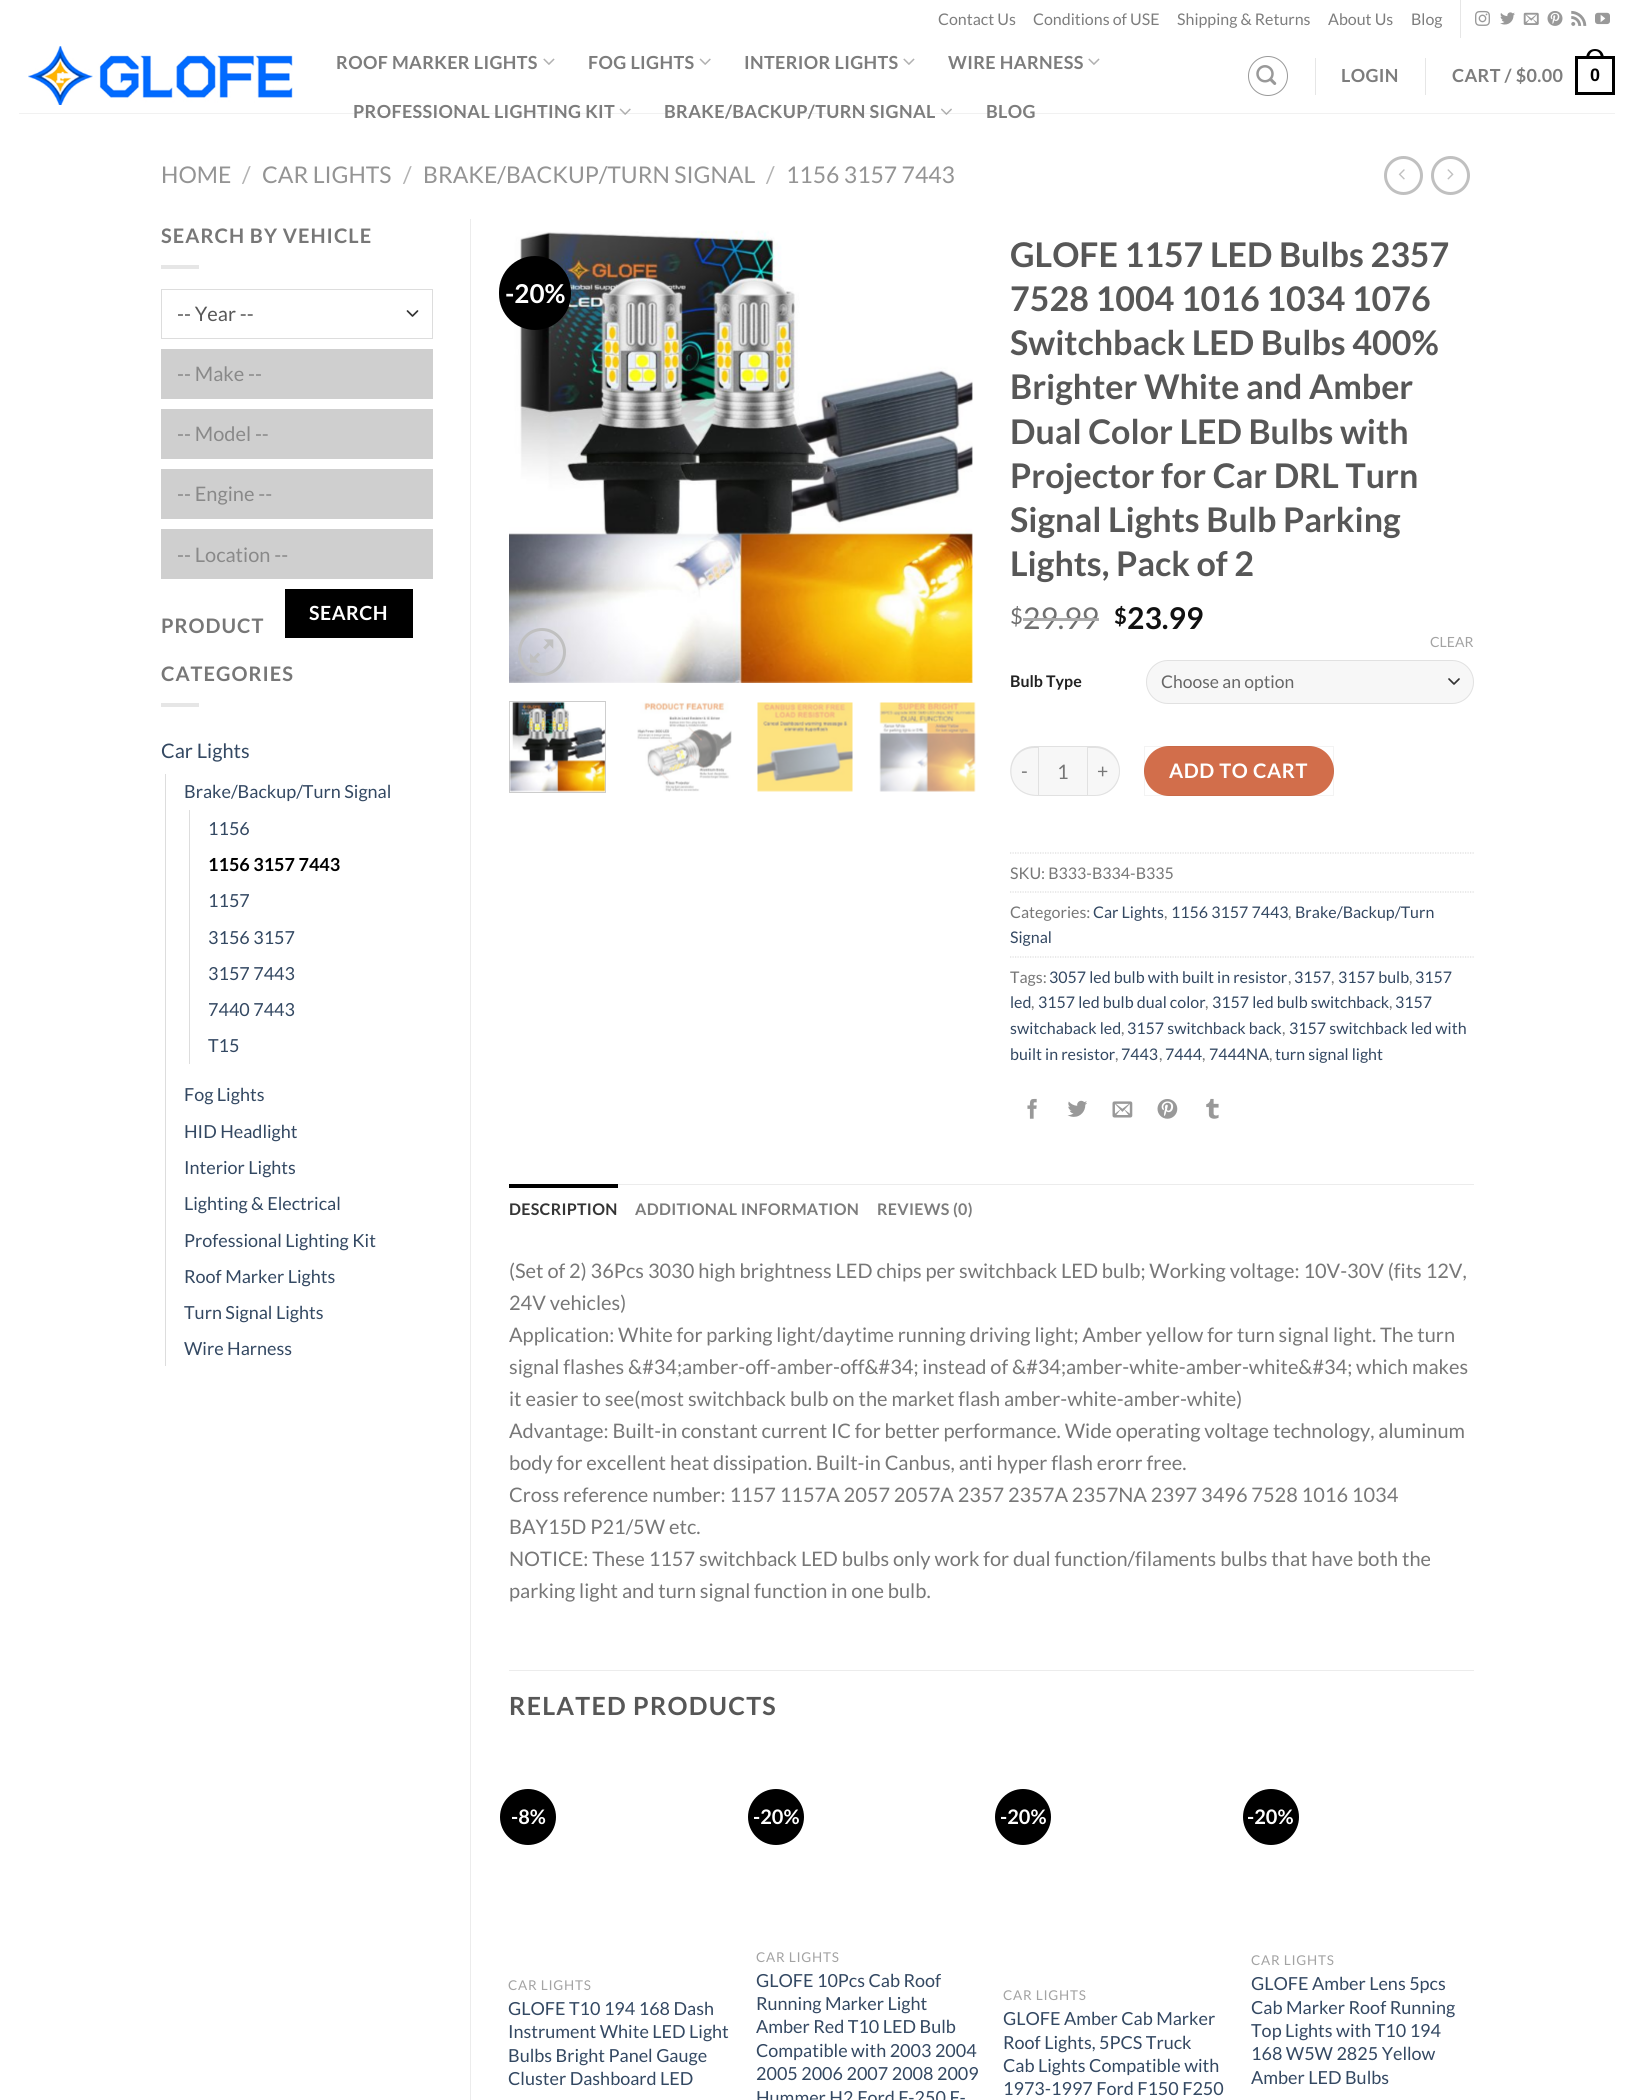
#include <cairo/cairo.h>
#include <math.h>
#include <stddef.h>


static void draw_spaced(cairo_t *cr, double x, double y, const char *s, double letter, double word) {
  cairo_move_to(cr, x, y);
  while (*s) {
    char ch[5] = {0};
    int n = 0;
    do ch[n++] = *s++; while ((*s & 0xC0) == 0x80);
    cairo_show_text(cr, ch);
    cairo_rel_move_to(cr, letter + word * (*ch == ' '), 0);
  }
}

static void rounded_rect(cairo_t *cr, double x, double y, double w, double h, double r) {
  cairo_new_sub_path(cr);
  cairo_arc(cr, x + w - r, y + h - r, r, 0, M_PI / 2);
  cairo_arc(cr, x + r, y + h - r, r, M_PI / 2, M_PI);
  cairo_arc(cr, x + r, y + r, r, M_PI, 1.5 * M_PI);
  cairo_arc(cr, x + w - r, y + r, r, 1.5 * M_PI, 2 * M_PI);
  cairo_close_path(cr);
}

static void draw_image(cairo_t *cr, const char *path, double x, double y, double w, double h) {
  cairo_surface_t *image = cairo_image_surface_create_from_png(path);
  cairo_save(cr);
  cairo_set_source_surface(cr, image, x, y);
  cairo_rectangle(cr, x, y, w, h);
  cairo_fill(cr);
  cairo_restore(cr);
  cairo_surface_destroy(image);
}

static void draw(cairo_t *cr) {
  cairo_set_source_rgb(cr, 1, 1, 1);
  cairo_paint(cr);
  cairo_set_source_rgb(cr, 230 / 255.0, 230 / 255.0, 230 / 255.0);
  cairo_rectangle(cr, 1460, 0, 1, 38);
  cairo_fill(cr);
  draw_image(cr, "images/1.png", 1475, 10, 15, 16);
  draw_image(cr, "images/2.png", 1500, 12, 15, 13);
  draw_image(cr, "images/3.png", 1523, 12, 16, 13);
  draw_image(cr, "images/4.png", 1547, 11, 16, 15);
  draw_image(cr, "images/5.png", 1571, 10, 16, 16);
  draw_image(cr, "images/6.png", 1595, 12, 15, 13);
  draw_image(cr, "images/7.png", 28, 46, 265, 59);
  draw_image(cr, "images/8.png", 543, 58, 12, 7);
  draw_image(cr, "images/9.png", 699, 58, 12, 7);
  draw_image(cr, "images/8.png", 903, 58, 12, 7);
  draw_image(cr, "images/8.png", 1088, 58, 12, 7);
  draw_image(cr, "images/9.png", 619, 108, 12, 7);
  draw_image(cr, "images/10.png", 941, 108, 11, 7);
  cairo_arc(cr, 1268, 76, 19.5, 0, 2 * M_PI);
  cairo_set_source_rgb(cr, 153 / 255.0, 153 / 255.0, 153 / 255.0);
  cairo_set_line_width(cr, 1);
  cairo_stroke(cr);
  draw_image(cr, "images/11.png", 1256, 65, 21, 20);
  cairo_set_source_rgb(cr, 230 / 255.0, 230 / 255.0, 230 / 255.0);
  cairo_rectangle(cr, 1315, 58, 1, 37);
  cairo_fill(cr);
  cairo_rectangle(cr, 1425, 58, 1, 37);
  cairo_fill(cr);
  cairo_rectangle(cr, 1576.5, 57.5, 37, 36);
  cairo_set_source_rgb(cr, 0, 0, 0);
  cairo_set_line_width(cr, 3);
  cairo_stroke(cr);
  cairo_set_fill_rule(cr, CAIRO_FILL_RULE_EVEN_ODD);
  cairo_new_path(cr);
  cairo_move_to(cr, 1595, 49);
  cairo_curve_to(cr, 1601, 49, 1604, 53.5, 1604, 59);
  cairo_line_to(cr, 1586, 59);
  cairo_curve_to(cr, 1586, 53.5, 1589, 49, 1595, 49);
  cairo_close_path(cr);
  cairo_move_to(cr, 1595, 51);
  cairo_curve_to(cr, 1599.5, 51, 1601, 55, 1601, 59);
  cairo_line_to(cr, 1589, 59);
  cairo_curve_to(cr, 1589, 55, 1590.5, 51, 1595, 51);
  cairo_close_path(cr);
  cairo_fill(cr);
  cairo_set_source_rgba(cr, 119 / 255.0, 119 / 255.0, 119 / 255.0, 0.1);
  cairo_rectangle(cr, 19, 113, 1596, 1);
  cairo_fill(cr);
  cairo_arc(cr, 1403.5, 175.5, 18, 0, 2 * M_PI);
  cairo_set_source_rgb(cr, 192 / 255.0, 192 / 255.0, 192 / 255.0);
  cairo_stroke(cr);
  draw_image(cr, "images/12.png", 1398, 169, 7, 11);
  cairo_arc(cr, 1450.5, 175.5, 18, 0, 2 * M_PI);
  cairo_stroke(cr);
  draw_image(cr, "images/13.png", 1447, 169, 7, 11);
  cairo_set_source_rgb(cr, 230 / 255.0, 230 / 255.0, 230 / 255.0);
  cairo_rectangle(cr, 161, 265, 38, 4);
  cairo_fill(cr);
  cairo_new_path(cr);
  cairo_move_to(cr, 407.5, 311);
  cairo_line_to(cr, 412.5, 316);
  cairo_line_to(cr, 417.5, 311);
  cairo_set_source_rgb(cr, 51 / 255.0, 51 / 255.0, 51 / 255.0);
  cairo_set_line_width(cr, 1.7);
  cairo_set_line_cap(cr, CAIRO_LINE_CAP_ROUND);
  cairo_set_line_join(cr, CAIRO_LINE_JOIN_ROUND);
  cairo_stroke(cr);
  cairo_rectangle(cr, 161.5, 289.5, 271, 49);
  cairo_set_source_rgb(cr, 221 / 255.0, 221 / 255.0, 221 / 255.0);
  cairo_set_line_width(cr, 1);
  cairo_set_line_cap(cr, CAIRO_LINE_CAP_BUTT);
  cairo_set_line_join(cr, CAIRO_LINE_JOIN_MITER);
  cairo_stroke(cr);
  cairo_set_source_rgb(cr, 207 / 255.0, 207 / 255.0, 207 / 255.0);
  cairo_rectangle(cr, 161, 349, 272, 50);
  cairo_fill(cr);
  cairo_rectangle(cr, 161, 409, 272, 50);
  cairo_fill(cr);
  cairo_rectangle(cr, 161, 469, 272, 50);
  cairo_fill(cr);
  cairo_rectangle(cr, 161, 529, 272, 50);
  cairo_fill(cr);
  cairo_set_source_rgb(cr, 0, 0, 0);
  cairo_rectangle(cr, 285, 589, 128, 49);
  cairo_fill(cr);
  cairo_set_source_rgb(cr, 230 / 255.0, 230 / 255.0, 230 / 255.0);
  cairo_rectangle(cr, 161, 703, 38, 4);
  cairo_fill(cr);
  cairo_set_source_rgb(cr, 221 / 255.0, 221 / 255.0, 221 / 255.0);
  cairo_rectangle(cr, 165, 774, 1, 592);
  cairo_fill(cr);
  cairo_rectangle(cr, 189, 810, 1, 254);
  cairo_fill(cr);
  cairo_set_source_rgb(cr, 236 / 255.0, 236 / 255.0, 236 / 255.0);
  cairo_rectangle(cr, 470, 219, 1, 1881);
  cairo_fill(cr);
  draw_image(cr, "images/14.png", 509, 230, 464, 453);
  draw_image(cr, "images/15.png", 972, 381, 1, 302);
  cairo_set_source_rgb(cr, 0, 0, 0);
  rounded_rect(cr, 499, 256, 72, 74, 36);
  cairo_fill(cr);
  cairo_arc(cr, 542, 652, 22.5, 0, 2 * M_PI);
  cairo_set_source_rgb(cr, 192 / 255.0, 192 / 255.0, 192 / 255.0);
  cairo_set_line_width(cr, 3);
  cairo_stroke(cr);
  draw_image(cr, "images/16.png", 530, 639, 24, 24);
  cairo_rectangle(cr, 509.5, 701.5, 96, 91);
  cairo_set_source_rgb(cr, 204 / 255.0, 204 / 255.0, 204 / 255.0);
  cairo_set_line_width(cr, 1);
  cairo_stroke(cr);
  draw_image(cr, "images/17.png", 509, 702, 97, 90);
  draw_image(cr, "images/18.png", 637, 702, 95, 90);
  draw_image(cr, "images/19.png", 757, 702, 96, 90);
  draw_image(cr, "images/20.png", 879, 702, 97, 90);
  cairo_set_source_rgb(cr, 247 / 255.0, 247 / 255.0, 247 / 255.0);
  rounded_rect(cr, 1146, 660, 328, 44, 22);
  cairo_fill(cr);
  cairo_new_path(cr);
  cairo_move_to(cr, 1449, 679);
  cairo_line_to(cr, 1454, 684);
  cairo_line_to(cr, 1459, 679);
  cairo_set_source_rgb(cr, 51 / 255.0, 51 / 255.0, 51 / 255.0);
  cairo_set_line_width(cr, 1.7);
  cairo_set_line_cap(cr, CAIRO_LINE_CAP_ROUND);
  cairo_set_line_join(cr, CAIRO_LINE_JOIN_ROUND);
  cairo_stroke(cr);
  rounded_rect(cr, 1146.5, 660.5, 327, 43, 21.5);
  cairo_set_source_rgba(cr, 0, 0, 0, 0.09);
  cairo_set_line_width(cr, 1);
  cairo_set_line_cap(cr, CAIRO_LINE_CAP_BUTT);
  cairo_set_line_join(cr, CAIRO_LINE_JOIN_MITER);
  cairo_stroke(cr);
  cairo_set_source_rgb(cr, 247 / 255.0, 247 / 255.0, 247 / 255.0);
  cairo_new_path(cr);
  cairo_move_to(cr, 1035, 746);
  cairo_line_to(cr, 1038, 746);
  cairo_line_to(cr, 1038, 796);
  cairo_line_to(cr, 1035, 796);
  cairo_curve_to(cr, 1021, 796, 1010, 785, 1010, 771);
  cairo_curve_to(cr, 1010, 757, 1021, 746, 1035, 746);
  cairo_close_path(cr);
  cairo_fill(cr);
  cairo_set_source_rgba(cr, 0, 0, 0, 0.09);
  cairo_new_path(cr);
  cairo_move_to(cr, 1035, 746);
  cairo_line_to(cr, 1038, 746);
  cairo_line_to(cr, 1038, 796);
  cairo_curve_to(cr, 1000, 796, 1003, 746, 1035, 746);
  cairo_close_path(cr);
  cairo_move_to(cr, 1035, 748);
  cairo_line_to(cr, 1038, 748);
  cairo_line_to(cr, 1038, 795);
  cairo_curve_to(cr, 1002, 795, 1004, 748, 1035, 748);
  cairo_close_path(cr);
  cairo_fill(cr);
  cairo_set_source_rgb(cr, 247 / 255.0, 247 / 255.0, 247 / 255.0);
  cairo_rectangle(cr, 1038.5, 746.5, 49, 49);
  cairo_fill_preserve(cr);
  cairo_set_source_rgb(cr, 225 / 255.0, 225 / 255.0, 225 / 255.0);
  cairo_stroke(cr);
  cairo_set_source_rgb(cr, 247 / 255.0, 247 / 255.0, 247 / 255.0);
  cairo_new_path(cr);
  cairo_move_to(cr, 1088, 746);
  cairo_line_to(cr, 1095, 746);
  cairo_curve_to(cr, 1109, 746, 1120, 757, 1120, 771);
  cairo_curve_to(cr, 1120, 785, 1109, 796, 1095, 796);
  cairo_line_to(cr, 1088, 796);
  cairo_close_path(cr);
  cairo_fill(cr);
  cairo_set_source_rgba(cr, 0, 0, 0, 0.09);
  cairo_new_path(cr);
  cairo_move_to(cr, 1088, 746);
  cairo_line_to(cr, 1095, 746);
  cairo_curve_to(cr, 1109, 746, 1120, 757, 1120, 771);
  cairo_curve_to(cr, 1120, 785, 1109, 796, 1095, 796);
  cairo_line_to(cr, 1088, 796);
  cairo_close_path(cr);
  cairo_move_to(cr, 1088, 748);
  cairo_line_to(cr, 1095, 748);
  cairo_curve_to(cr, 1108, 748, 1119, 758, 1119, 771);
  cairo_curve_to(cr, 1119, 784, 1108, 795, 1095, 795);
  cairo_line_to(cr, 1088, 795);
  cairo_close_path(cr);
  cairo_fill(cr);
  cairo_set_source_rgb(cr, 210 / 255.0, 110 / 255.0, 75 / 255.0);
  rounded_rect(cr, 1144, 746, 190, 50, 25);
  cairo_fill(cr);
  cairo_rectangle(cr, 1144.5, 746.5, 189, 49);
  cairo_set_source_rgba(cr, 0, 0, 0, 0.05);
  cairo_stroke(cr);
  cairo_new_path(cr);
  cairo_move_to(cr, 1010, 853);
  cairo_line_to(cr, 1474, 853);
  cairo_set_source_rgb(cr, 221 / 255.0, 221 / 255.0, 221 / 255.0);
  cairo_set_line_width(cr, 1.2);
  cairo_set_dash(cr, (double[]){1.25, 1.25}, 2, 0);
  cairo_stroke(cr);
  cairo_new_path(cr);
  cairo_move_to(cr, 1010, 892);
  cairo_line_to(cr, 1474, 892);
  cairo_stroke(cr);
  cairo_new_path(cr);
  cairo_move_to(cr, 1010, 957);
  cairo_line_to(cr, 1474, 957);
  cairo_stroke(cr);
  draw_image(cr, "images/21.png", 1027, 1098, 10, 21);
  draw_image(cr, "images/22.png", 1067, 1100, 20, 17);
  draw_image(cr, "images/23.png", 1112, 1101, 21, 17);
  draw_image(cr, "images/24.png", 1157, 1099, 21, 20);
  draw_image(cr, "images/25.png", 1206, 1098, 13, 21);
  cairo_set_source_rgb(cr, 236 / 255.0, 236 / 255.0, 236 / 255.0);
  cairo_rectangle(cr, 618, 1184, 856, 1);
  cairo_fill(cr);
  cairo_set_source_rgb(cr, 0, 0, 0);
  cairo_rectangle(cr, 509, 1184, 109, 4);
  cairo_fill(cr);
  cairo_set_source_rgb(cr, 236 / 255.0, 236 / 255.0, 236 / 255.0);
  cairo_rectangle(cr, 509, 1670, 965, 1);
  cairo_fill(cr);
  cairo_set_source_rgb(cr, 0, 0, 0);
  cairo_arc(cr, 528, 1817, 28, 0, 2 * M_PI);
  cairo_fill(cr);
  cairo_arc(cr, 776, 1817, 28, 0, 2 * M_PI);
  cairo_fill(cr);
  cairo_arc(cr, 1023, 1817, 28, 0, 2 * M_PI);
  cairo_fill(cr);
  cairo_arc(cr, 1271, 1817, 28, 0, 2 * M_PI);
  cairo_fill(cr);
  cairo_select_font_face(cr, "Lato", CAIRO_FONT_SLANT_NORMAL, CAIRO_FONT_WEIGHT_NORMAL);
  cairo_set_font_size(cr, 16);
  cairo_set_source_rgb(cr, 125 / 255.0, 125 / 255.0, 125 / 255.0);
  cairo_move_to(cr, 938, 25);
  cairo_show_text(cr, "Contact Us");
  cairo_move_to(cr, 1033, 25);
  cairo_show_text(cr, "Conditions of USE");
  cairo_move_to(cr, 1177, 25);
  cairo_show_text(cr, "Shipping & Returns");
  cairo_move_to(cr, 1328, 25);
  cairo_show_text(cr, "About Us");
  cairo_move_to(cr, 1411, 25);
  cairo_show_text(cr, "Blog");
  cairo_select_font_face(cr, "Lato", CAIRO_FONT_SLANT_NORMAL, CAIRO_FONT_WEIGHT_BOLD);
  cairo_set_font_size(cr, 18);
  draw_spaced(cr, 336, 69, "ROOF MARKER LIGHTS", 0.35, 0);
  draw_spaced(cr, 588, 69, "FOG LIGHTS", 0.35, 0);
  draw_spaced(cr, 744, 69, "INTERIOR LIGHTS", 0.35, 0);
  draw_spaced(cr, 948, 69, "WIRE HARNESS", 0.35, 0);
  draw_spaced(cr, 353, 118, "PROFESSIONAL LIGHTING KIT", 0.35, 0);
  draw_spaced(cr, 664, 118, "BRAKE/BACKUP/TURN SIGNAL", 0.35, 0);
  draw_spaced(cr, 986, 118, "BLOG", 0.35, 0);
  draw_spaced(cr, 1341, 82, "LOGIN", 0.35, 0);
  draw_spaced(cr, 1452, 82, "CART / $0.00", 0.35, 0);
  cairo_select_font_face(cr, "Liberation Sans", CAIRO_FONT_SLANT_NORMAL, CAIRO_FONT_WEIGHT_BOLD);
  cairo_set_source_rgb(cr, 0, 0, 0);
  draw_spaced(cr, 1590, 81, "0", 0.35, 0);
  cairo_select_font_face(cr, "Lato", CAIRO_FONT_SLANT_NORMAL, CAIRO_FONT_WEIGHT_NORMAL);
  cairo_set_font_size(cr, 23);
  cairo_set_source_rgb(cr, 148 / 255.0, 148 / 255.0, 148 / 255.0);
  cairo_move_to(cr, 161, 183);
  cairo_show_text(cr, "HOME");
  cairo_set_source_rgb(cr, 178 / 255.0, 178 / 255.0, 178 / 255.0);
  cairo_move_to(cr, 242, 183);
  cairo_show_text(cr, "/");
  cairo_set_source_rgb(cr, 148 / 255.0, 148 / 255.0, 148 / 255.0);
  cairo_move_to(cr, 262, 183);
  cairo_show_text(cr, "CAR LIGHTS");
  cairo_set_source_rgb(cr, 178 / 255.0, 178 / 255.0, 178 / 255.0);
  cairo_move_to(cr, 403, 183);
  cairo_show_text(cr, "/");
  cairo_set_source_rgb(cr, 148 / 255.0, 148 / 255.0, 148 / 255.0);
  cairo_move_to(cr, 423, 183);
  cairo_show_text(cr, "BRAKE/BACKUP/TURN SIGNAL");
  cairo_set_source_rgb(cr, 178 / 255.0, 178 / 255.0, 178 / 255.0);
  cairo_move_to(cr, 766, 183);
  cairo_show_text(cr, "/");
  cairo_set_source_rgb(cr, 148 / 255.0, 148 / 255.0, 148 / 255.0);
  cairo_move_to(cr, 786, 183);
  cairo_show_text(cr, "1156 3157 7443");
  cairo_select_font_face(cr, "Lato", CAIRO_FONT_SLANT_NORMAL, CAIRO_FONT_WEIGHT_BOLD);
  cairo_set_font_size(cr, 20);
  cairo_set_source_rgb(cr, 119 / 255.0, 119 / 255.0, 119 / 255.0);
  draw_spaced(cr, 161, 243, "SEARCH BY VEHICLE", 1, 0);
  cairo_select_font_face(cr, "Lato", CAIRO_FONT_SLANT_NORMAL, CAIRO_FONT_WEIGHT_NORMAL);
  cairo_set_source_rgb(cr, 87 / 255.0, 87 / 255.0, 87 / 255.0);
  cairo_move_to(cr, 177, 321);
  cairo_show_text(cr, "-- Year --");
  cairo_set_source_rgb(cr, 137 / 255.0, 137 / 255.0, 137 / 255.0);
  cairo_move_to(cr, 177, 381);
  cairo_show_text(cr, "-- Make --");
  cairo_move_to(cr, 177, 441);
  cairo_show_text(cr, "-- Model --");
  cairo_move_to(cr, 177, 501);
  cairo_show_text(cr, "-- Engine --");
  cairo_move_to(cr, 177, 562);
  cairo_show_text(cr, "-- Location --");
  cairo_select_font_face(cr, "Lato", CAIRO_FONT_SLANT_NORMAL, CAIRO_FONT_WEIGHT_BOLD);
  cairo_set_font_size(cr, 19.5);
  cairo_set_source_rgb(cr, 1, 1, 1);
  draw_spaced(cr, 309, 620, "SEARCH", 0.5, 0);
  cairo_set_font_size(cr, 20);
  cairo_set_source_rgb(cr, 119 / 255.0, 119 / 255.0, 119 / 255.0);
  draw_spaced(cr, 161, 633, "PRODUCT", 1, 0);
  draw_spaced(cr, 161, 681, "CATEGORIES", 1, 0);
  cairo_select_font_face(cr, "Lato", CAIRO_FONT_SLANT_NORMAL, CAIRO_FONT_WEIGHT_NORMAL);
  cairo_set_source_rgb(cr, 51 / 255.0, 72 / 255.0, 98 / 255.0);
  cairo_move_to(cr, 161, 758);
  cairo_show_text(cr, "Car Lights");
  cairo_set_font_size(cr, 18);
  cairo_move_to(cr, 184, 798);
  cairo_show_text(cr, "Brake/Backup/Turn Signal");
  cairo_move_to(cr, 208, 835);
  cairo_show_text(cr, "1156");
  cairo_select_font_face(cr, "Lato", CAIRO_FONT_SLANT_NORMAL, CAIRO_FONT_WEIGHT_BOLD);
  cairo_set_source_rgb(cr, 0, 0, 0);
  cairo_move_to(cr, 208, 871);
  cairo_show_text(cr, "1156 3157 7443");
  cairo_select_font_face(cr, "Lato", CAIRO_FONT_SLANT_NORMAL, CAIRO_FONT_WEIGHT_NORMAL);
  cairo_set_source_rgb(cr, 51 / 255.0, 72 / 255.0, 98 / 255.0);
  cairo_move_to(cr, 208, 907);
  cairo_show_text(cr, "1157");
  cairo_move_to(cr, 208, 944);
  cairo_show_text(cr, "3156 3157");
  cairo_move_to(cr, 208, 980);
  cairo_show_text(cr, "3157 7443");
  cairo_move_to(cr, 208, 1016);
  cairo_show_text(cr, "7440 7443");
  cairo_move_to(cr, 208, 1052);
  cairo_show_text(cr, "T15");
  cairo_move_to(cr, 184, 1101);
  cairo_show_text(cr, "Fog Lights");
  cairo_move_to(cr, 184, 1138);
  cairo_show_text(cr, "HID Headlight");
  cairo_move_to(cr, 184, 1174);
  cairo_show_text(cr, "Interior Lights");
  cairo_move_to(cr, 184, 1210);
  cairo_show_text(cr, "Lighting & Electrical");
  cairo_move_to(cr, 184, 1247);
  cairo_show_text(cr, "Professional Lighting Kit");
  cairo_move_to(cr, 184, 1283);
  cairo_show_text(cr, "Roof Marker Lights");
  cairo_move_to(cr, 184, 1319);
  cairo_show_text(cr, "Turn Signal Lights");
  cairo_move_to(cr, 184, 1355);
  cairo_show_text(cr, "Wire Harness");
  cairo_select_font_face(cr, "Lato", CAIRO_FONT_SLANT_NORMAL, CAIRO_FONT_WEIGHT_BOLD);
  cairo_set_font_size(cr, 26);
  cairo_set_source_rgb(cr, 1, 1, 1);
  cairo_move_to(cr, 505, 303);
  cairo_show_text(cr, "-20%");
  cairo_set_font_size(cr, 34);
  cairo_set_source_rgb(cr, 87 / 255.0, 87 / 255.0, 87 / 255.0);
  cairo_move_to(cr, 1010, 267);
  cairo_show_text(cr, "GLOFE 1157 LED Bulbs 2357");
  cairo_move_to(cr, 1010, 311);
  cairo_show_text(cr, "7528 1004 1016 1034 1076");
  cairo_move_to(cr, 1010, 355);
  cairo_show_text(cr, "Switchback LED Bulbs 400%");
  cairo_move_to(cr, 1010, 399);
  cairo_show_text(cr, "Brighter White and Amber");
  cairo_move_to(cr, 1010, 444);
  cairo_show_text(cr, "Dual Color LED Bulbs with");
  cairo_move_to(cr, 1010, 488);
  cairo_show_text(cr, "Projector for Car DRL Turn");
  cairo_move_to(cr, 1010, 532);
  cairo_show_text(cr, "Signal Lights Bulb Parking");
  cairo_move_to(cr, 1010, 576);
  cairo_show_text(cr, "Lights, Pack of 2");
  cairo_select_font_face(cr, "Lato", CAIRO_FONT_SLANT_NORMAL, CAIRO_FONT_WEIGHT_NORMAL);
  cairo_set_font_size(cr, 22);
  cairo_set_source_rgb(cr, 112 / 255.0, 112 / 255.0, 112 / 255.0);
  cairo_move_to(cr, 1010, 624);
  cairo_show_text(cr, "$");
  cairo_set_font_size(cr, 30);
  cairo_move_to(cr, 1023, 629);
  cairo_show_text(cr, "29.99");
  cairo_set_source_rgb(cr, 173 / 255.0, 173 / 255.0, 173 / 255.0);
  cairo_rectangle(cr, 1023, 618, 76, 3);
  cairo_fill(cr);
  cairo_select_font_face(cr, "Lato", CAIRO_FONT_SLANT_NORMAL, CAIRO_FONT_WEIGHT_BOLD);
  cairo_set_font_size(cr, 22);
  cairo_set_source_rgb(cr, 17 / 255.0, 17 / 255.0, 17 / 255.0);
  cairo_move_to(cr, 1114, 624);
  cairo_show_text(cr, "$");
  cairo_set_font_size(cr, 30);
  cairo_move_to(cr, 1127, 629);
  cairo_show_text(cr, "23.99");
  cairo_set_font_size(cr, 16);
  cairo_set_source_rgb(cr, 34 / 255.0, 34 / 255.0, 34 / 255.0);
  cairo_move_to(cr, 1010, 687);
  cairo_show_text(cr, "Bulb Type");
  cairo_select_font_face(cr, "Lato", CAIRO_FONT_SLANT_NORMAL, CAIRO_FONT_WEIGHT_NORMAL);
  cairo_set_font_size(cr, 14);
  cairo_set_source_rgb(cr, 163 / 255.0, 163 / 255.0, 163 / 255.0);
  cairo_move_to(cr, 1430, 647);
  cairo_show_text(cr, "CLEAR");
  cairo_set_font_size(cr, 17.5);
  cairo_set_source_rgb(cr, 102 / 255.0, 102 / 255.0, 102 / 255.0);
  cairo_move_to(cr, 1161, 688);
  cairo_show_text(cr, "Choose an option");
  cairo_set_font_size(cr, 19.5);
  cairo_set_source_rgb(cr, 119 / 255.0, 119 / 255.0, 119 / 255.0);
  draw_spaced(cr, 1021, 778, "-", 0.5, 0);
  cairo_set_font_size(cr, 20);
  cairo_move_to(cr, 1057, 779);
  cairo_show_text(cr, "1");
  cairo_set_font_size(cr, 19.5);
  draw_spaced(cr, 1097, 778, "+", 0.5, 0);
  cairo_select_font_face(cr, "Lato", CAIRO_FONT_SLANT_NORMAL, CAIRO_FONT_WEIGHT_BOLD);
  cairo_set_font_size(cr, 20);
  cairo_set_source_rgb(cr, 1, 1, 1);
  draw_spaced(cr, 1169, 778, "ADD TO CART", 0.6, 0);
  cairo_select_font_face(cr, "Lato", CAIRO_FONT_SLANT_NORMAL, CAIRO_FONT_WEIGHT_NORMAL);
  cairo_set_font_size(cr, 16);
  cairo_set_source_rgb(cr, 119 / 255.0, 119 / 255.0, 119 / 255.0);
  cairo_move_to(cr, 1010, 879);
  cairo_show_text(cr, "SKU: B333-B334-B335");
  cairo_move_to(cr, 1010, 918);
  cairo_show_text(cr, "Categories:");
  cairo_set_source_rgb(cr, 51 / 255.0, 72 / 255.0, 98 / 255.0);
  cairo_move_to(cr, 1093, 918);
  cairo_show_text(cr, "Car Lights");
  cairo_set_source_rgb(cr, 119 / 255.0, 119 / 255.0, 119 / 255.0);
  cairo_move_to(cr, 1164, 918);
  cairo_show_text(cr, ",");
  cairo_set_source_rgb(cr, 51 / 255.0, 72 / 255.0, 98 / 255.0);
  cairo_move_to(cr, 1171, 918);
  cairo_show_text(cr, "1156 3157 7443");
  cairo_set_source_rgb(cr, 119 / 255.0, 119 / 255.0, 119 / 255.0);
  cairo_move_to(cr, 1288, 918);
  cairo_show_text(cr, ",");
  cairo_set_source_rgb(cr, 51 / 255.0, 72 / 255.0, 98 / 255.0);
  cairo_move_to(cr, 1295, 918);
  cairo_show_text(cr, "Brake/Backup/Turn");
  cairo_move_to(cr, 1010, 943);
  cairo_show_text(cr, "Signal");
  cairo_set_source_rgb(cr, 119 / 255.0, 119 / 255.0, 119 / 255.0);
  cairo_move_to(cr, 1010, 983);
  cairo_show_text(cr, "Tags:");
  cairo_set_source_rgb(cr, 51 / 255.0, 72 / 255.0, 98 / 255.0);
  cairo_move_to(cr, 1049, 983);
  cairo_show_text(cr, "3057 led bulb with built in resistor");
  cairo_set_source_rgb(cr, 119 / 255.0, 119 / 255.0, 119 / 255.0);
  cairo_move_to(cr, 1288, 983);
  cairo_show_text(cr, ",");
  cairo_set_source_rgb(cr, 51 / 255.0, 72 / 255.0, 98 / 255.0);
  cairo_move_to(cr, 1294, 983);
  cairo_show_text(cr, "3157");
  cairo_set_source_rgb(cr, 119 / 255.0, 119 / 255.0, 119 / 255.0);
  cairo_move_to(cr, 1331, 983);
  cairo_show_text(cr, ",");
  cairo_set_source_rgb(cr, 51 / 255.0, 72 / 255.0, 98 / 255.0);
  cairo_move_to(cr, 1338, 983);
  cairo_show_text(cr, "3157 bulb");
  cairo_set_source_rgb(cr, 119 / 255.0, 119 / 255.0, 119 / 255.0);
  cairo_move_to(cr, 1409, 983);
  cairo_show_text(cr, ",");
  cairo_set_source_rgb(cr, 51 / 255.0, 72 / 255.0, 98 / 255.0);
  cairo_move_to(cr, 1415, 983);
  cairo_show_text(cr, "3157");
  cairo_move_to(cr, 1010, 1008);
  cairo_show_text(cr, "led");
  cairo_set_source_rgb(cr, 119 / 255.0, 119 / 255.0, 119 / 255.0);
  cairo_move_to(cr, 1031, 1008);
  cairo_show_text(cr, ",");
  cairo_set_source_rgb(cr, 51 / 255.0, 72 / 255.0, 98 / 255.0);
  cairo_move_to(cr, 1038, 1008);
  cairo_show_text(cr, "3157 led bulb dual color");
  cairo_set_source_rgb(cr, 119 / 255.0, 119 / 255.0, 119 / 255.0);
  cairo_move_to(cr, 1205, 1008);
  cairo_show_text(cr, ",");
  cairo_set_source_rgb(cr, 51 / 255.0, 72 / 255.0, 98 / 255.0);
  cairo_move_to(cr, 1212, 1008);
  cairo_show_text(cr, "3157 led bulb switchback");
  cairo_set_source_rgb(cr, 119 / 255.0, 119 / 255.0, 119 / 255.0);
  cairo_move_to(cr, 1389, 1008);
  cairo_show_text(cr, ",");
  cairo_set_source_rgb(cr, 51 / 255.0, 72 / 255.0, 98 / 255.0);
  cairo_move_to(cr, 1395, 1008);
  cairo_show_text(cr, "3157");
  cairo_move_to(cr, 1010, 1034);
  cairo_show_text(cr, "switchaback led");
  cairo_set_source_rgb(cr, 119 / 255.0, 119 / 255.0, 119 / 255.0);
  cairo_move_to(cr, 1121, 1034);
  cairo_show_text(cr, ",");
  cairo_set_source_rgb(cr, 51 / 255.0, 72 / 255.0, 98 / 255.0);
  cairo_move_to(cr, 1127, 1034);
  cairo_show_text(cr, "3157 switchback back");
  cairo_set_source_rgb(cr, 119 / 255.0, 119 / 255.0, 119 / 255.0);
  cairo_move_to(cr, 1282, 1034);
  cairo_show_text(cr, ",");
  cairo_set_source_rgb(cr, 51 / 255.0, 72 / 255.0, 98 / 255.0);
  cairo_move_to(cr, 1289, 1034);
  cairo_show_text(cr, "3157 switchback led with");
  cairo_move_to(cr, 1010, 1060);
  cairo_show_text(cr, "built in resistor");
  cairo_set_source_rgb(cr, 119 / 255.0, 119 / 255.0, 119 / 255.0);
  cairo_move_to(cr, 1115, 1060);
  cairo_show_text(cr, ",");
  cairo_set_source_rgb(cr, 51 / 255.0, 72 / 255.0, 98 / 255.0);
  cairo_move_to(cr, 1121, 1060);
  cairo_show_text(cr, "7443");
  cairo_set_source_rgb(cr, 119 / 255.0, 119 / 255.0, 119 / 255.0);
  cairo_move_to(cr, 1159, 1060);
  cairo_show_text(cr, ",");
  cairo_set_source_rgb(cr, 51 / 255.0, 72 / 255.0, 98 / 255.0);
  cairo_move_to(cr, 1165, 1060);
  cairo_show_text(cr, "7444");
  cairo_set_source_rgb(cr, 119 / 255.0, 119 / 255.0, 119 / 255.0);
  cairo_move_to(cr, 1202, 1060);
  cairo_show_text(cr, ",");
  cairo_set_source_rgb(cr, 51 / 255.0, 72 / 255.0, 98 / 255.0);
  cairo_move_to(cr, 1209, 1060);
  cairo_show_text(cr, "7444NA");
  cairo_set_source_rgb(cr, 119 / 255.0, 119 / 255.0, 119 / 255.0);
  cairo_move_to(cr, 1269, 1060);
  cairo_show_text(cr, ",");
  cairo_set_source_rgb(cr, 51 / 255.0, 72 / 255.0, 98 / 255.0);
  cairo_move_to(cr, 1275, 1060);
  cairo_show_text(cr, "turn signal light");
  cairo_select_font_face(cr, "Lato", CAIRO_FONT_SLANT_NORMAL, CAIRO_FONT_WEIGHT_BOLD);
  cairo_set_source_rgb(cr, 53 / 255.0, 53 / 255.0, 53 / 255.0);
  draw_spaced(cr, 509, 1215, "DESCRIPTION", 0.3, 0);
  cairo_set_source_rgb(cr, 125 / 255.0, 125 / 255.0, 125 / 255.0);
  draw_spaced(cr, 635, 1215, "ADDITIONAL INFORMATION", 0.3, 0);
  draw_spaced(cr, 877, 1215, "REVIEWS (0)", 0.3, 0);
  cairo_select_font_face(cr, "Lato", CAIRO_FONT_SLANT_NORMAL, CAIRO_FONT_WEIGHT_NORMAL);
  cairo_set_font_size(cr, 20);
  cairo_set_source_rgb(cr, 119 / 255.0, 119 / 255.0, 119 / 255.0);
  cairo_move_to(cr, 509, 1278);
  cairo_show_text(cr, "(Set of 2) 36Pcs 3030 high brightness LED chips per switchback LED bulb; Working voltage: 10V-30V (fits 12V,");
  cairo_move_to(cr, 509, 1310);
  cairo_show_text(cr, "24V vehicles)");
  cairo_move_to(cr, 509, 1342);
  cairo_show_text(cr, "Application: White for parking light/daytime running driving light; Amber yellow for turn signal light. The turn");
  cairo_move_to(cr, 509, 1374);
  cairo_show_text(cr, "signal flashes &#34;amber-off-amber-off&#34; instead of &#34;amber-white-amber-white&#34; which makes");
  cairo_move_to(cr, 509, 1406);
  cairo_show_text(cr, "it easier to see(most switchback bulb on the market flash amber-white-amber-white)");
  cairo_move_to(cr, 509, 1438);
  cairo_show_text(cr, "Advantage: Built-in constant current IC for better performance. Wide operating voltage technology, aluminum");
  cairo_move_to(cr, 509, 1470);
  cairo_show_text(cr, "body for excellent heat dissipation. Built-in Canbus, anti hyper flash erorr free.");
  cairo_move_to(cr, 509, 1502);
  cairo_show_text(cr, "Cross reference number: 1157 1157A 2057 2057A 2357 2357A 2357NA 2397 3496 7528 1016 1034");
  cairo_move_to(cr, 509, 1534);
  cairo_show_text(cr, "BAY15D P21/5W etc.");
  cairo_move_to(cr, 509, 1566);
  cairo_show_text(cr, "NOTICE: These 1157 switchback LED bulbs only work for dual function/filaments bulbs that have both the");
  cairo_move_to(cr, 509, 1598);
  cairo_show_text(cr, "parking light and turn signal function in one bulb.");
  cairo_select_font_face(cr, "Lato", CAIRO_FONT_SLANT_NORMAL, CAIRO_FONT_WEIGHT_BOLD);
  cairo_set_font_size(cr, 25);
  cairo_set_source_rgb(cr, 87 / 255.0, 87 / 255.0, 87 / 255.0);
  draw_spaced(cr, 509, 1715, "RELATED PRODUCTS", 1.25, 0);
  cairo_set_font_size(cr, 20);
  cairo_set_source_rgb(cr, 1, 1, 1);
  cairo_move_to(cr, 511, 1824);
  cairo_show_text(cr, "-8%");
  cairo_select_font_face(cr, "Lato", CAIRO_FONT_SLANT_NORMAL, CAIRO_FONT_WEIGHT_NORMAL);
  cairo_set_font_size(cr, 13.5);
  cairo_set_source_rgb(cr, 163 / 255.0, 163 / 255.0, 163 / 255.0);
  draw_spaced(cr, 508, 1990, "CAR LIGHTS", 0.75, 0);
  cairo_set_font_size(cr, 18);
  cairo_set_source_rgb(cr, 51 / 255.0, 72 / 255.0, 98 / 255.0);
  cairo_move_to(cr, 508, 2015);
  cairo_show_text(cr, "GLOFE T10 194 168 Dash");
  cairo_move_to(cr, 508, 2038);
  cairo_show_text(cr, "Instrument White LED Light");
  cairo_move_to(cr, 508, 2062);
  cairo_show_text(cr, "Bulbs Bright Panel Gauge");
  cairo_move_to(cr, 508, 2085);
  cairo_show_text(cr, "Cluster Dashboard LED");
  cairo_select_font_face(cr, "Lato", CAIRO_FONT_SLANT_NORMAL, CAIRO_FONT_WEIGHT_BOLD);
  cairo_set_font_size(cr, 20);
  cairo_set_source_rgb(cr, 1, 1, 1);
  cairo_move_to(cr, 753, 1824);
  cairo_show_text(cr, "-20%");
  cairo_select_font_face(cr, "Lato", CAIRO_FONT_SLANT_NORMAL, CAIRO_FONT_WEIGHT_NORMAL);
  cairo_set_font_size(cr, 13.5);
  cairo_set_source_rgb(cr, 163 / 255.0, 163 / 255.0, 163 / 255.0);
  draw_spaced(cr, 756, 1962, "CAR LIGHTS", 0.75, 0);
  cairo_set_font_size(cr, 18);
  cairo_set_source_rgb(cr, 51 / 255.0, 72 / 255.0, 98 / 255.0);
  cairo_move_to(cr, 756, 1987);
  cairo_show_text(cr, "GLOFE 10Pcs Cab Roof");
  cairo_move_to(cr, 756, 2010);
  cairo_show_text(cr, "Running Marker Light");
  cairo_move_to(cr, 756, 2033);
  cairo_show_text(cr, "Amber Red T10 LED Bulb");
  cairo_move_to(cr, 756, 2057);
  cairo_show_text(cr, "Compatible with 2003 2004");
  cairo_move_to(cr, 756, 2080);
  cairo_show_text(cr, "2005 2006 2007 2008 2009");
  cairo_move_to(cr, 756, 2104);
  cairo_show_text(cr, "Hummer H2,Ford F-250 F-");
  cairo_select_font_face(cr, "Lato", CAIRO_FONT_SLANT_NORMAL, CAIRO_FONT_WEIGHT_BOLD);
  cairo_set_font_size(cr, 20);
  cairo_set_source_rgb(cr, 1, 1, 1);
  cairo_move_to(cr, 1000, 1824);
  cairo_show_text(cr, "-20%");
  cairo_select_font_face(cr, "Lato", CAIRO_FONT_SLANT_NORMAL, CAIRO_FONT_WEIGHT_NORMAL);
  cairo_set_font_size(cr, 13.5);
  cairo_set_source_rgb(cr, 163 / 255.0, 163 / 255.0, 163 / 255.0);
  draw_spaced(cr, 1003, 2000, "CAR LIGHTS", 0.75, 0);
  cairo_set_font_size(cr, 18);
  cairo_set_source_rgb(cr, 51 / 255.0, 72 / 255.0, 98 / 255.0);
  cairo_move_to(cr, 1003, 2025);
  cairo_show_text(cr, "GLOFE Amber Cab Marker");
  cairo_move_to(cr, 1003, 2049);
  cairo_show_text(cr, "Roof Lights, 5PCS Truck");
  cairo_move_to(cr, 1003, 2072);
  cairo_show_text(cr, "Cab Lights Compatible with");
  cairo_move_to(cr, 1003, 2095);
  cairo_show_text(cr, "1973-1997 Ford F150 F250");
  cairo_select_font_face(cr, "Lato", CAIRO_FONT_SLANT_NORMAL, CAIRO_FONT_WEIGHT_BOLD);
  cairo_set_font_size(cr, 20);
  cairo_set_source_rgb(cr, 1, 1, 1);
  cairo_move_to(cr, 1247, 1824);
  cairo_show_text(cr, "-20%");
  cairo_select_font_face(cr, "Lato", CAIRO_FONT_SLANT_NORMAL, CAIRO_FONT_WEIGHT_NORMAL);
  cairo_set_font_size(cr, 13.5);
  cairo_set_source_rgb(cr, 163 / 255.0, 163 / 255.0, 163 / 255.0);
  draw_spaced(cr, 1251, 1965, "CAR LIGHTS", 0.75, 0);
  cairo_set_font_size(cr, 18);
  cairo_set_source_rgb(cr, 51 / 255.0, 72 / 255.0, 98 / 255.0);
  cairo_move_to(cr, 1251, 1990);
  cairo_show_text(cr, "GLOFE Amber Lens 5pcs");
  cairo_move_to(cr, 1251, 2014);
  cairo_show_text(cr, "Cab Marker Roof Running");
  cairo_move_to(cr, 1251, 2037);
  cairo_show_text(cr, "Top Lights with T10 194");
  cairo_move_to(cr, 1251, 2060);
  cairo_show_text(cr, "168 W5W 2825 Yellow");
  cairo_move_to(cr, 1251, 2084);
  cairo_show_text(cr, "Amber LED Bulbs");
}

int main(void) {
  cairo_surface_t *surface = cairo_image_surface_create(CAIRO_FORMAT_RGB24, 1633, 2100);
  cairo_t *cr = cairo_create(surface);
  cairo_font_options_t *options = cairo_font_options_create();
  cairo_font_options_set_hint_metrics(options, CAIRO_HINT_METRICS_OFF);
  cairo_font_options_set_hint_style(options, CAIRO_HINT_STYLE_NONE);
  cairo_set_font_options(cr, options);
  cairo_set_miter_limit(cr, 4);
  draw(cr);
  cairo_surface_write_to_png(surface, "out.png");
  cairo_font_options_destroy(options);
  cairo_destroy(cr);
  cairo_surface_destroy(surface);
  return 0;
}
